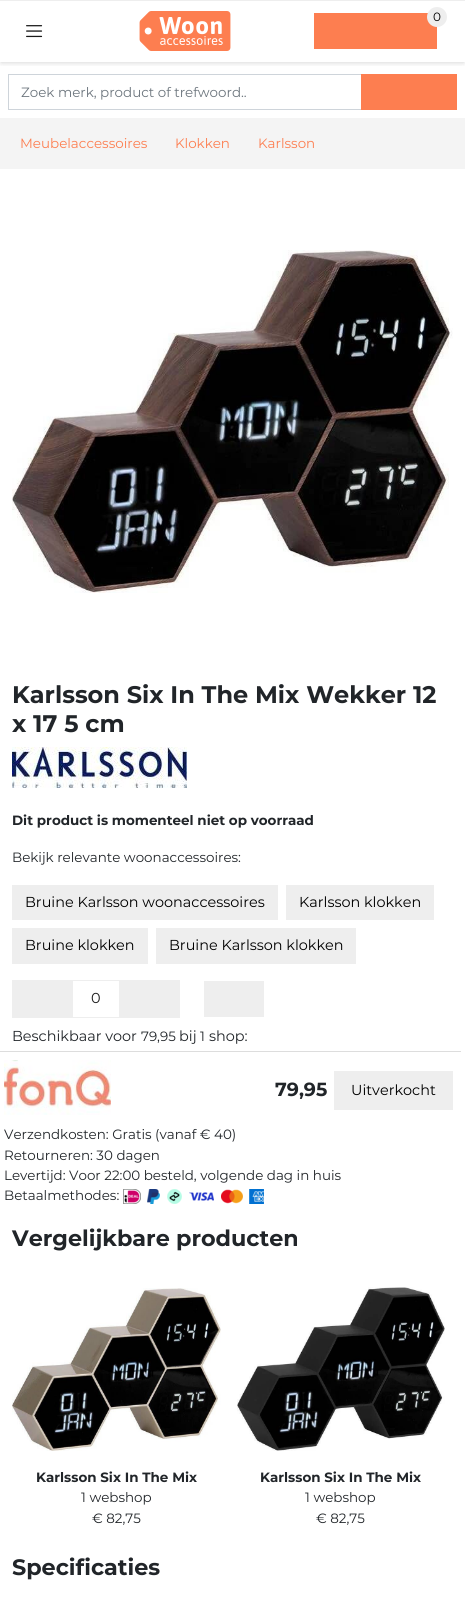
#include <cairo/cairo.h>
#include <math.h>
#include <stddef.h>


static void rounded_rect(cairo_t *cr, double x, double y, double w, double h, double r) {
  cairo_new_sub_path(cr);
  cairo_arc(cr, x + w - r, y + h - r, r, 0, M_PI / 2);
  cairo_arc(cr, x + r, y + h - r, r, M_PI / 2, M_PI);
  cairo_arc(cr, x + r, y + r, r, M_PI, 1.5 * M_PI);
  cairo_arc(cr, x + w - r, y + r, r, 1.5 * M_PI, 2 * M_PI);
  cairo_close_path(cr);
}

static void draw_shadow(cairo_t *cr, double x, double y, double w, double h, double r, double blur, double alpha) {
  cairo_push_group_with_content(cr, CAIRO_CONTENT_ALPHA);
  cairo_set_operator(cr, CAIRO_OPERATOR_SOURCE);
  for (int i = 15; i >= -15 && fmin(w, h) + blur * i / 3 > 0; i -= 2) {
    double e = blur * i / 6;
    cairo_set_source_rgba(cr, 0, 0, 0, alpha * erfc((i - 1) / 8.5) / 2);
    rounded_rect(cr, x - e, y - e, w + 2 * e, h + 2 * e, fmax(0, fmin(r + e + blur * .6, fmin(w, h) / 2 + e)));
    cairo_fill(cr);
  }
  cairo_pattern_t *soft = cairo_pop_group(cr);
  cairo_mask(cr, soft);
  cairo_pattern_destroy(soft);
}

static void draw_image(cairo_t *cr, const char *path, double x, double y, double w, double h) {
  cairo_surface_t *image = cairo_image_surface_create_from_png(path);
  cairo_save(cr);
  cairo_set_source_surface(cr, image, x, y);
  cairo_rectangle(cr, x, y, w, h);
  cairo_fill(cr);
  cairo_restore(cr);
  cairo_surface_destroy(image);
}

static void draw(cairo_t *cr) {
  cairo_set_source_rgb(cr, 1, 1, 1);
  cairo_paint(cr);
  cairo_save(cr);
  cairo_rectangle(cr, 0, 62, 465, 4);
  cairo_clip(cr);
  cairo_set_source_rgb(cr, 0, 0, 0);
  draw_shadow(cr, 1, 3, 463, 60, 0, 2.5, 0.15);
  cairo_restore(cr);
  cairo_set_source_rgb(cr, 238 / 255.0, 238 / 255.0, 238 / 255.0);
  cairo_rectangle(cr, 0, 0, 465, 1);
  cairo_fill(cr);
  draw_image(cr, "images/1.png", 139, 11, 92, 40);
  cairo_set_source_rgb(cr, 253 / 255.0, 126 / 255.0, 80 / 255.0);
  cairo_rectangle(cr, 314, 13, 123, 36);
  cairo_fill(cr);
  cairo_set_source_rgb(cr, 238 / 255.0, 238 / 255.0, 238 / 255.0);
  cairo_arc(cr, 437, 17, 10, 0, 2 * M_PI);
  cairo_fill(cr);
  draw_image(cr, "images/2.png", 26, 25, 17, 13);
  cairo_rectangle(cr, 8.5, 74.5, 353, 35);
  cairo_set_source_rgb(cr, 206 / 255.0, 212 / 255.0, 218 / 255.0);
  cairo_set_line_width(cr, 1);
  cairo_stroke(cr);
  cairo_set_source_rgb(cr, 253 / 255.0, 126 / 255.0, 80 / 255.0);
  cairo_rectangle(cr, 361, 74, 96, 36);
  cairo_fill(cr);
  cairo_set_source_rgb(cr, 244 / 255.0, 244 / 255.0, 244 / 255.0);
  cairo_rectangle(cr, 0, 118, 465, 51);
  cairo_fill(cr);
  draw_image(cr, "images/3.png", 12, 250, 441, 343);
  draw_image(cr, "images/4.png", 12, 747, 175, 41);
  cairo_set_source_rgb(cr, 238 / 255.0, 238 / 255.0, 238 / 255.0);
  cairo_rectangle(cr, 12, 885, 266, 35);
  cairo_fill(cr);
  cairo_rectangle(cr, 286, 885, 148, 35);
  cairo_fill(cr);
  cairo_rectangle(cr, 12, 928, 136, 36);
  cairo_fill(cr);
  cairo_rectangle(cr, 156, 928, 200, 36);
  cairo_fill(cr);
  cairo_rectangle(cr, 12.5, 980.5, 167, 37);
  cairo_stroke(cr);
  cairo_rectangle(cr, 13, 981, 60, 36);
  cairo_fill(cr);
  cairo_rectangle(cr, 119, 981, 60, 36);
  cairo_fill(cr);
  cairo_rectangle(cr, 204, 981, 60, 36);
  cairo_fill(cr);
  cairo_set_source_rgb(cr, 221 / 255.0, 221 / 255.0, 221 / 255.0);
  cairo_rectangle(cr, 0, 1051, 461, 1);
  cairo_fill(cr);
  draw_image(cr, "images/5.png", 4, 1060, 107, 55);
  cairo_set_source_rgb(cr, 238 / 255.0, 238 / 255.0, 238 / 255.0);
  cairo_rectangle(cr, 334, 1071, 119, 39);
  cairo_fill(cr);
  draw_image(cr, "images/6.png", 123, 1189, 18, 15);
  draw_image(cr, "images/7.png", 147, 1189, 13, 15);
  draw_image(cr, "images/8.png", 167, 1189, 15, 15);
  draw_image(cr, "images/9.png", 189, 1192, 25, 9);
  draw_image(cr, "images/10.png", 221, 1189, 22, 15);
  draw_image(cr, "images/11.png", 249, 1189, 15, 15);
  draw_image(cr, "images/12.png", 12, 1288, 209, 163);
  draw_image(cr, "images/13.png", 237, 1287, 208, 164);
  cairo_select_font_face(cr, "Montserrat", CAIRO_FONT_SLANT_NORMAL, CAIRO_FONT_WEIGHT_NORMAL);
  cairo_set_font_size(cr, 12);
  cairo_set_source_rgb(cr, 0, 0, 0);
  cairo_move_to(cr, 433, 21);
  cairo_show_text(cr, "0");
  cairo_set_font_size(cr, 13.45);
  cairo_set_source_rgb(cr, 108 / 255.0, 117 / 255.0, 125 / 255.0);
  cairo_move_to(cr, 21, 97);
  cairo_show_text(cr, "Zoek merk, product of trefwoord..");
  cairo_set_source_rgb(cr, 253 / 255.0, 126 / 255.0, 80 / 255.0);
  cairo_move_to(cr, 20, 148);
  cairo_show_text(cr, "Meubelaccessoires");
  cairo_move_to(cr, 175, 148);
  cairo_show_text(cr, "Klokken");
  cairo_move_to(cr, 258, 148);
  cairo_show_text(cr, "Karlsson");
  cairo_select_font_face(cr, "Montserrat", CAIRO_FONT_SLANT_NORMAL, CAIRO_FONT_WEIGHT_BOLD);
  cairo_set_font_size(cr, 24);
  cairo_set_source_rgb(cr, 33 / 255.0, 37 / 255.0, 41 / 255.0);
  cairo_move_to(cr, 12, 703);
  cairo_show_text(cr, "Karlsson Six In The Mix Wekker 12");
  cairo_move_to(cr, 12, 732);
  cairo_show_text(cr, "x 17 5 cm");
  cairo_set_font_size(cr, 13.45);
  cairo_move_to(cr, 12, 825);
  cairo_show_text(cr, "Dit product is momenteel niet op voorraad");
  cairo_select_font_face(cr, "Montserrat", CAIRO_FONT_SLANT_NORMAL, CAIRO_FONT_WEIGHT_NORMAL);
  cairo_move_to(cr, 12, 862);
  cairo_show_text(cr, "Bekijk relevante woonaccessoires:");
  cairo_set_font_size(cr, 14.4);
  cairo_set_source_rgb(cr, 0, 0, 0);
  cairo_move_to(cr, 25, 907);
  cairo_show_text(cr, "Bruine Karlsson woonaccessoires");
  cairo_move_to(cr, 299, 907);
  cairo_show_text(cr, "Karlsson klokken");
  cairo_move_to(cr, 25, 950);
  cairo_show_text(cr, "Bruine klokken");
  cairo_move_to(cr, 169, 950);
  cairo_show_text(cr, "Bruine Karlsson klokken");
  cairo_set_source_rgb(cr, 29 / 255.0, 29 / 255.0, 29 / 255.0);
  cairo_move_to(cr, 91, 1003);
  cairo_show_text(cr, "0");
  cairo_set_source_rgb(cr, 33 / 255.0, 37 / 255.0, 41 / 255.0);
  cairo_move_to(cr, 12, 1041);
  cairo_show_text(cr, "Beschikbaar voor");
  cairo_set_font_size(cr, 13.45);
  cairo_move_to(cr, 141, 1041);
  cairo_show_text(cr, "79,95");
  cairo_set_font_size(cr, 14.4);
  cairo_move_to(cr, 179, 1041);
  cairo_show_text(cr, "bij");
  cairo_set_font_size(cr, 13.45);
  cairo_move_to(cr, 200, 1041);
  cairo_show_text(cr, "1");
  cairo_set_font_size(cr, 14.4);
  cairo_move_to(cr, 209, 1041);
  cairo_show_text(cr, "shop:");
  cairo_select_font_face(cr, "Montserrat", CAIRO_FONT_SLANT_NORMAL, CAIRO_FONT_WEIGHT_BOLD);
  cairo_set_font_size(cr, 19);
  cairo_move_to(cr, 275, 1096);
  cairo_show_text(cr, "79,95");
  cairo_select_font_face(cr, "Montserrat", CAIRO_FONT_SLANT_NORMAL, CAIRO_FONT_WEIGHT_NORMAL);
  cairo_set_font_size(cr, 14.4);
  cairo_set_source_rgb(cr, 0, 0, 0);
  cairo_move_to(cr, 351, 1095);
  cairo_show_text(cr, "Uitverkocht");
  cairo_set_font_size(cr, 13.45);
  cairo_set_source_rgb(cr, 33 / 255.0, 37 / 255.0, 41 / 255.0);
  cairo_move_to(cr, 4, 1139);
  cairo_show_text(cr, "Verzendkosten: Gratis (vanaf € 40)");
  cairo_move_to(cr, 4, 1160);
  cairo_show_text(cr, "Retourneren: 30 dagen");
  cairo_move_to(cr, 4, 1180);
  cairo_show_text(cr, "Levertijd: Voor 22:00 besteld, volgende dag in huis");
  cairo_move_to(cr, 4, 1200);
  cairo_show_text(cr, "Betaalmethodes:");
  cairo_select_font_face(cr, "Montserrat", CAIRO_FONT_SLANT_NORMAL, CAIRO_FONT_WEIGHT_BOLD);
  cairo_set_font_size(cr, 22.3);
  cairo_move_to(cr, 12, 1246);
  cairo_show_text(cr, "Vergelijkbare producten");
  cairo_set_font_size(cr, 13.45);
  cairo_move_to(cr, 36, 1482);
  cairo_show_text(cr, "Karlsson Six In The Mix");
  cairo_select_font_face(cr, "Montserrat", CAIRO_FONT_SLANT_NORMAL, CAIRO_FONT_WEIGHT_NORMAL);
  cairo_move_to(cr, 81, 1502);
  cairo_show_text(cr, "1 webshop");
  cairo_move_to(cr, 92, 1523);
  cairo_show_text(cr, "€ 82,75");
  cairo_select_font_face(cr, "Montserrat", CAIRO_FONT_SLANT_NORMAL, CAIRO_FONT_WEIGHT_BOLD);
  cairo_move_to(cr, 260, 1482);
  cairo_show_text(cr, "Karlsson Six In The Mix");
  cairo_select_font_face(cr, "Montserrat", CAIRO_FONT_SLANT_NORMAL, CAIRO_FONT_WEIGHT_NORMAL);
  cairo_move_to(cr, 305, 1502);
  cairo_show_text(cr, "1 webshop");
  cairo_move_to(cr, 316, 1523);
  cairo_show_text(cr, "€ 82,75");
  cairo_select_font_face(cr, "Montserrat", CAIRO_FONT_SLANT_NORMAL, CAIRO_FONT_WEIGHT_BOLD);
  cairo_set_font_size(cr, 22.3);
  cairo_move_to(cr, 12, 1575);
  cairo_show_text(cr, "Specificaties");
}

int main(void) {
  cairo_surface_t *surface = cairo_image_surface_create(CAIRO_FORMAT_RGB24, 465, 1598);
  cairo_t *cr = cairo_create(surface);
  cairo_font_options_t *options = cairo_font_options_create();
  cairo_font_options_set_hint_metrics(options, CAIRO_HINT_METRICS_OFF);
  cairo_font_options_set_hint_style(options, CAIRO_HINT_STYLE_NONE);
  cairo_set_font_options(cr, options);
  cairo_set_miter_limit(cr, 4);
  draw(cr);
  cairo_surface_write_to_png(surface, "out.png");
  cairo_font_options_destroy(options);
  cairo_destroy(cr);
  cairo_surface_destroy(surface);
  return 0;
}
